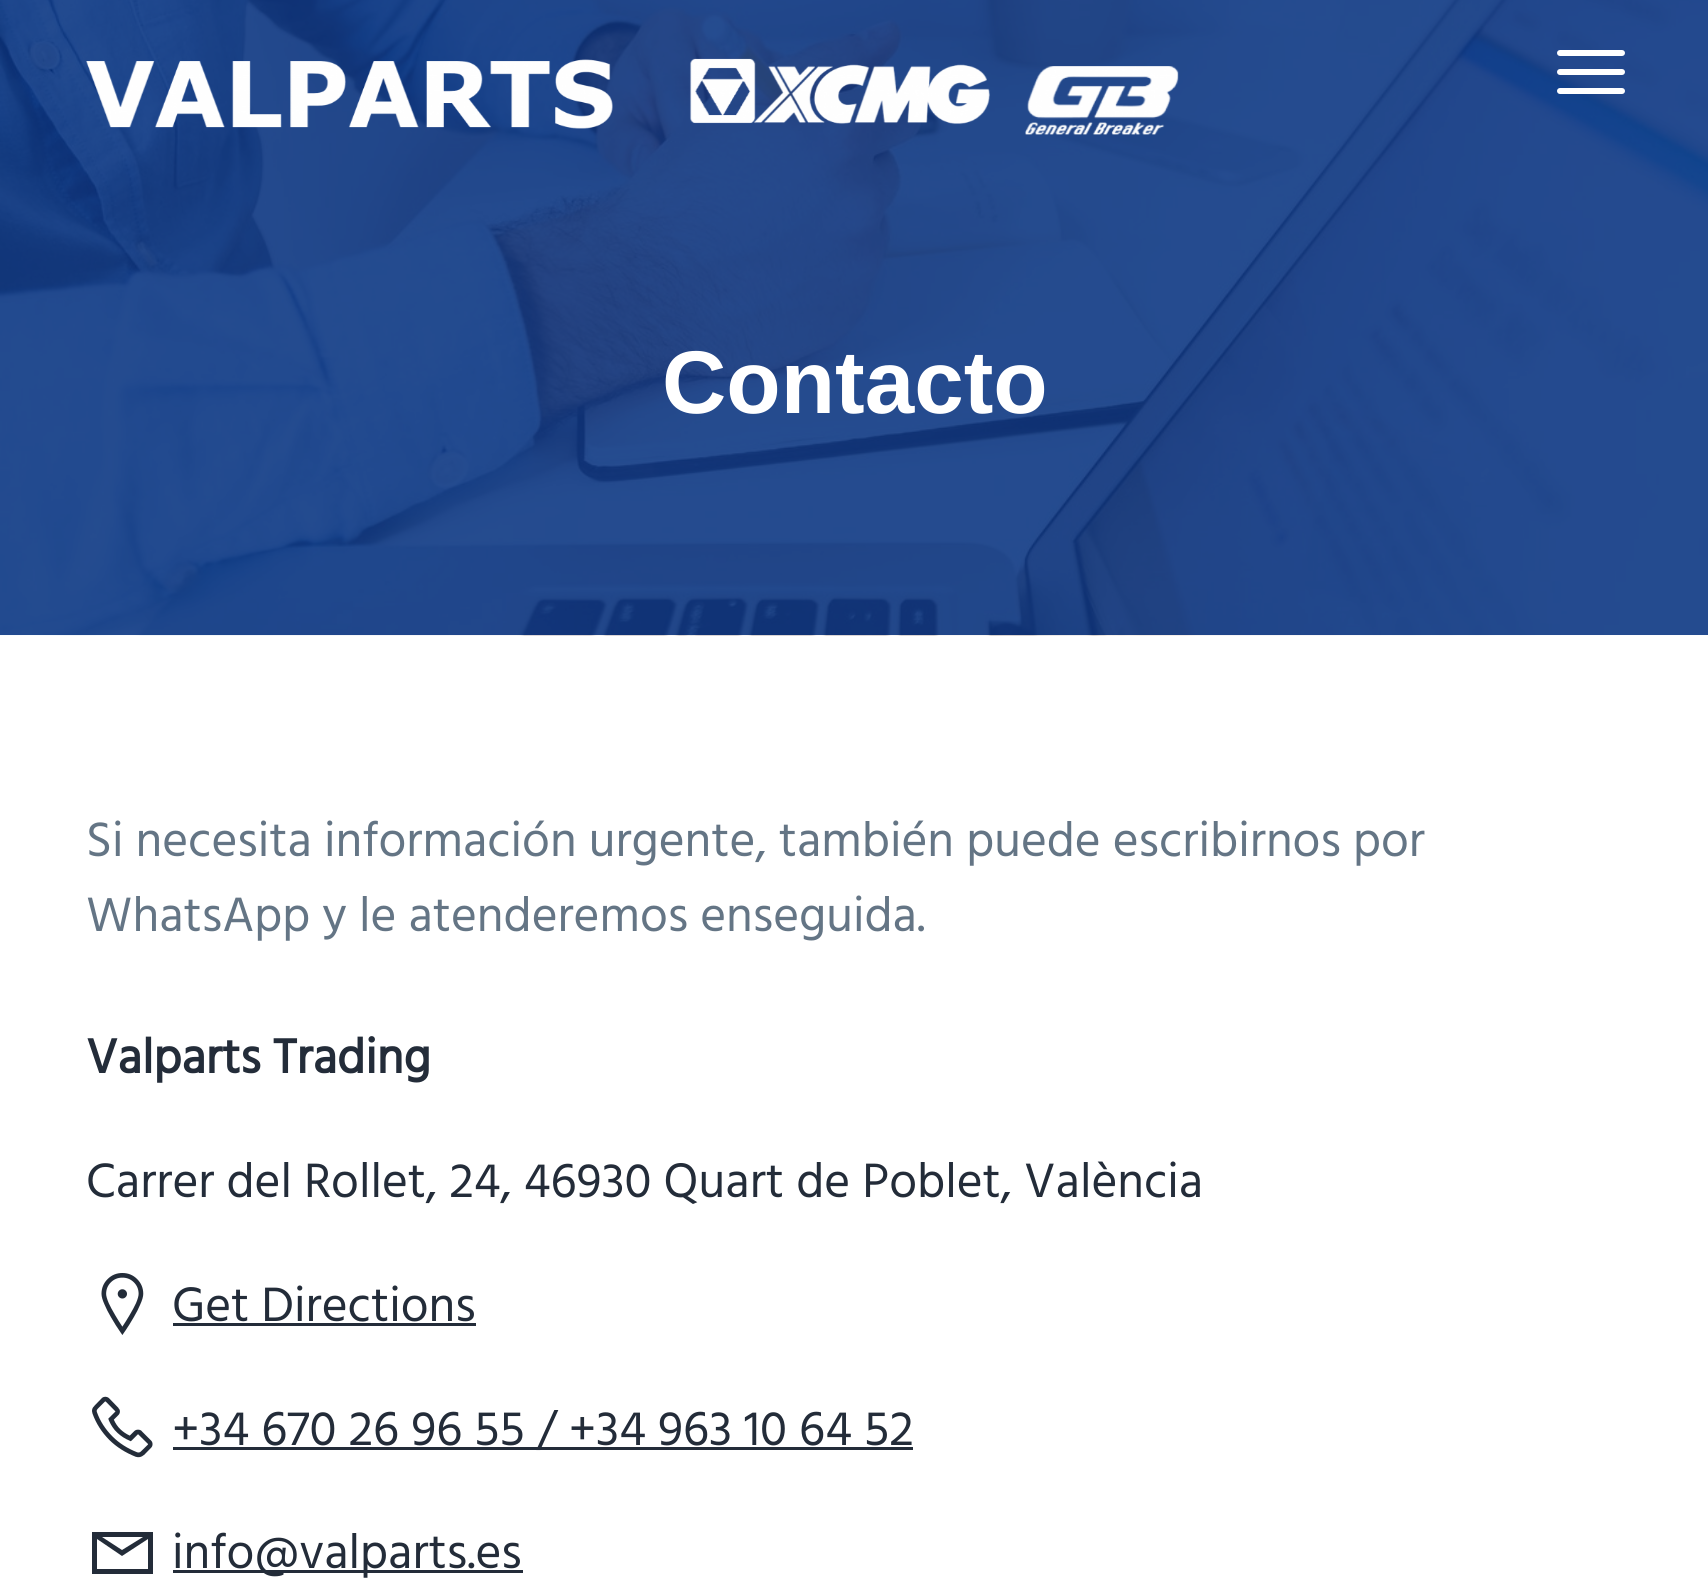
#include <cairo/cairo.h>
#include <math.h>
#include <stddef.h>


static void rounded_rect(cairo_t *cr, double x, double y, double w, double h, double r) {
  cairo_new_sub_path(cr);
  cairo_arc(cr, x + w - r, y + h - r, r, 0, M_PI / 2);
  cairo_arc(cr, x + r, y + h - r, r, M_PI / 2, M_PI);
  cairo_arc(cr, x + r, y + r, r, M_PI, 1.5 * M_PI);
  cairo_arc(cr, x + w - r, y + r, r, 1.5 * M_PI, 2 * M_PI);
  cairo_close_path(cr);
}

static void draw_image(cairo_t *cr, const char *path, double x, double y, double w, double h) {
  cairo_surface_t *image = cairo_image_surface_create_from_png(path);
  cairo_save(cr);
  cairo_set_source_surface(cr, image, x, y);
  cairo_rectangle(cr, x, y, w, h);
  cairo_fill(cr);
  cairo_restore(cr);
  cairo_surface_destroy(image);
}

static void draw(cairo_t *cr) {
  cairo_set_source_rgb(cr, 1, 1, 1);
  cairo_paint(cr);
  draw_image(cr, "images/2.png", 0, 0, 1708, 636);
  draw_image(cr, "images/1.png", 86, 58, 1093, 77);
  cairo_set_source_rgb(cr, 1, 1, 1);
  rounded_rect(cr, 1557, 69, 68, 6, 3);
  cairo_fill(cr);
  rounded_rect(cr, 1557, 50, 68, 6, 3);
  cairo_fill(cr);
  rounded_rect(cr, 1557, 88, 68, 6, 3);
  cairo_fill(cr);
  draw_image(cr, "images/3.png", 101, 1273, 43, 62);
  cairo_set_source_rgb(cr, 35 / 255.0, 44 / 255.0, 57 / 255.0);
  cairo_rectangle(cr, 173, 1323, 303, 3);
  cairo_fill(cr);
  draw_image(cr, "images/4.png", 92, 1396, 61, 62);
  cairo_rectangle(cr, 173, 1447, 740, 3);
  cairo_fill(cr);
  cairo_new_path(cr);
  cairo_move_to(cr, 92, 1532);
  cairo_line_to(cr, 153, 1532);
  cairo_line_to(cr, 153, 1574);
  cairo_line_to(cr, 92, 1574);
  cairo_close_path(cr);
  cairo_move_to(cr, 102, 1537);
  cairo_line_to(cr, 122, 1550);
  cairo_line_to(cr, 143, 1537);
  cairo_close_path(cr);
  cairo_move_to(cr, 97, 1539);
  cairo_line_to(cr, 97, 1569);
  cairo_line_to(cr, 148, 1569);
  cairo_line_to(cr, 148, 1539);
  cairo_line_to(cr, 122, 1556);
  cairo_close_path(cr);
  cairo_fill(cr);
  cairo_rectangle(cr, 173, 1570, 350, 3);
  cairo_fill(cr);
  cairo_select_font_face(cr, "Liberation Sans", CAIRO_FONT_SLANT_NORMAL, CAIRO_FONT_WEIGHT_BOLD);
  cairo_set_font_size(cr, 89);
  cairo_set_source_rgb(cr, 1, 1, 1);
  cairo_move_to(cr, 662, 413);
  cairo_show_text(cr, "Contacto");
  cairo_select_font_face(cr, "Hind", CAIRO_FONT_SLANT_NORMAL, CAIRO_FONT_WEIGHT_NORMAL);
  cairo_set_font_size(cr, 49.5);
  cairo_set_source_rgb(cr, 100 / 255.0, 117 / 255.0, 133 / 255.0);
  cairo_move_to(cr, 86, 856);
  cairo_show_text(cr, "Si necesita información urgente, también puede escribirnos por");
  cairo_move_to(cr, 86, 931);
  cairo_show_text(cr, "WhatsApp y le atenderemos enseguida.");
  cairo_select_font_face(cr, "Hind", CAIRO_FONT_SLANT_NORMAL, CAIRO_FONT_WEIGHT_BOLD);
  cairo_set_source_rgb(cr, 35 / 255.0, 44 / 255.0, 57 / 255.0);
  cairo_move_to(cr, 86, 1073);
  cairo_show_text(cr, "Valparts Trading");
  cairo_select_font_face(cr, "Hind", CAIRO_FONT_SLANT_NORMAL, CAIRO_FONT_WEIGHT_NORMAL);
  cairo_move_to(cr, 86, 1197);
  cairo_show_text(cr, "Carrer del Rollet, 24, 46930 Quart de Poblet, València");
  cairo_move_to(cr, 172, 1321);
  cairo_show_text(cr, "Get Directions");
  cairo_move_to(cr, 172, 1445);
  cairo_show_text(cr, "+34 670 26 96 55 / +34 963 10 64 52");
  cairo_move_to(cr, 172, 1568);
  cairo_show_text(cr, "info@valparts.es");
}

int main(void) {
  cairo_surface_t *surface = cairo_image_surface_create(CAIRO_FORMAT_RGB24, 1708, 1581);
  cairo_t *cr = cairo_create(surface);
  cairo_font_options_t *options = cairo_font_options_create();
  cairo_font_options_set_hint_metrics(options, CAIRO_HINT_METRICS_OFF);
  cairo_font_options_set_hint_style(options, CAIRO_HINT_STYLE_NONE);
  cairo_set_font_options(cr, options);
  cairo_set_miter_limit(cr, 4);
  draw(cr);
  cairo_surface_write_to_png(surface, "out.png");
  cairo_font_options_destroy(options);
  cairo_destroy(cr);
  cairo_surface_destroy(surface);
  return 0;
}
